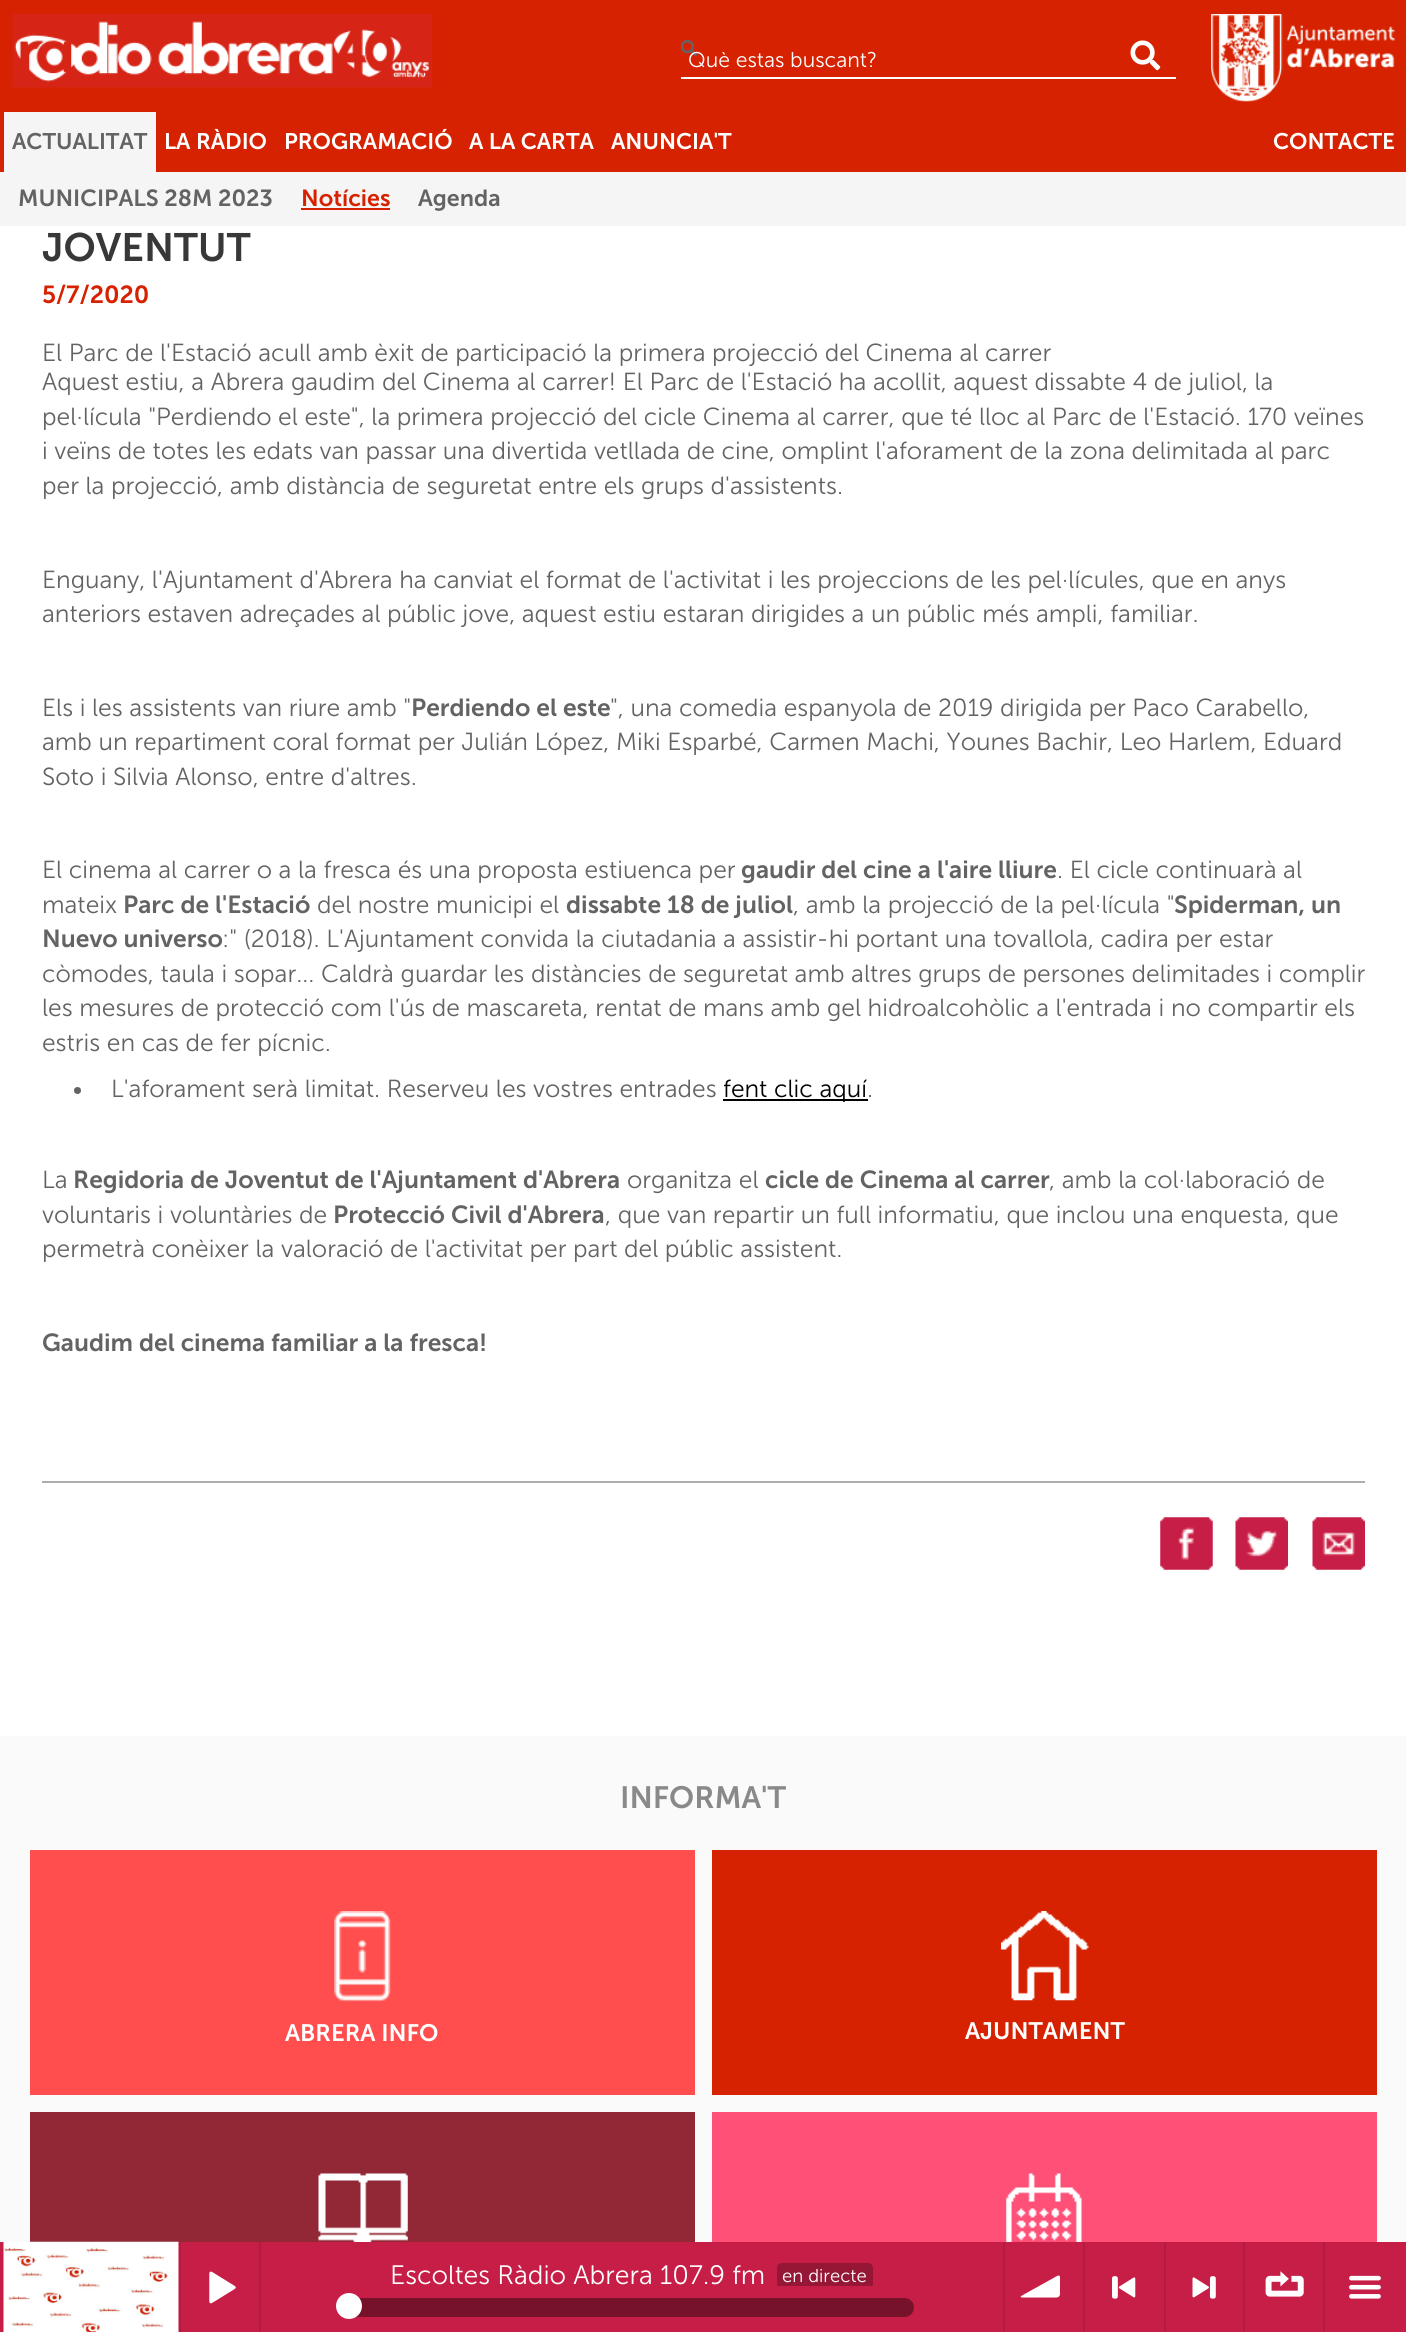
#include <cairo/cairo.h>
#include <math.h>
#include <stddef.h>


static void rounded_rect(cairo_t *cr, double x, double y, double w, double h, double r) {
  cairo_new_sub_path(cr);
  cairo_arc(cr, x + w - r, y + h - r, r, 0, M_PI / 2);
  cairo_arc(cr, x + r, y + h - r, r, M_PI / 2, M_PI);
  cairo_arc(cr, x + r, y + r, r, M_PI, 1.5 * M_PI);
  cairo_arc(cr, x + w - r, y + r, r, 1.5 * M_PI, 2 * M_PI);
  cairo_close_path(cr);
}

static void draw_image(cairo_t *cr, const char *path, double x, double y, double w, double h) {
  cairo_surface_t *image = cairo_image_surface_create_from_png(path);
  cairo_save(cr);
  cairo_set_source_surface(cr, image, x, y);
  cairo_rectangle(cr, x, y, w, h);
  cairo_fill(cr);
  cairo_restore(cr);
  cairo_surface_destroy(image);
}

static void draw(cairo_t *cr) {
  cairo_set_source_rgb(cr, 1, 1, 1);
  cairo_paint(cr);
  cairo_set_source_rgb(cr, 214 / 255.0, 34 / 255.0, 1 / 255.0);
  cairo_rectangle(cr, 0, 0, 1406, 172);
  cairo_fill(cr);
  draw_image(cr, "images/1.png", 12, 14, 421, 74);
  draw_image(cr, "images/2.png", 681, 40, 17, 17);
  draw_image(cr, "images/3.png", 1130, 40, 31, 31);
  cairo_set_source_rgb(cr, 1, 1, 1);
  cairo_rectangle(cr, 681, 77, 495, 2);
  cairo_fill(cr);
  draw_image(cr, "images/4.png", 1211, 14, 184, 88);
  cairo_set_source_rgb(cr, 245 / 255.0, 245 / 255.0, 245 / 255.0);
  cairo_rectangle(cr, 4, 112, 152, 60);
  cairo_fill(cr);
  cairo_rectangle(cr, 0, 172, 1406, 54);
  cairo_fill(cr);
  cairo_set_source_rgb(cr, 214 / 255.0, 34 / 255.0, 1 / 255.0);
  cairo_rectangle(cr, 301, 208, 89, 2);
  cairo_fill(cr);
  cairo_set_source_rgb(cr, 99 / 255.0, 99 / 255.0, 99 / 255.0);
  cairo_arc(cr, 77.5, 1090.5, 3.5, 0, 2 * M_PI);
  cairo_fill(cr);
  cairo_set_source_rgb(cr, 0, 0, 0);
  cairo_rectangle(cr, 723, 1099, 145, 2);
  cairo_fill(cr);
  cairo_set_source_rgb(cr, 173 / 255.0, 173 / 255.0, 173 / 255.0);
  cairo_rectangle(cr, 42, 1481, 1323, 2);
  cairo_fill(cr);
  draw_image(cr, "images/5.png", 1160, 1517, 53, 53);
  draw_image(cr, "images/6.png", 1235, 1517, 53, 53);
  draw_image(cr, "images/7.png", 1312, 1517, 53, 53);
  cairo_set_source_rgb(cr, 250 / 255.0, 250 / 255.0, 250 / 255.0);
  cairo_rectangle(cr, 0, 1736, 1406, 506);
  cairo_fill(cr);
  cairo_set_source_rgb(cr, 1, 78 / 255.0, 77 / 255.0);
  cairo_rectangle(cr, 30, 1850, 665, 245);
  cairo_fill(cr);
  draw_image(cr, "images/8.png", 334, 1911, 57, 91);
  cairo_set_source_rgb(cr, 214 / 255.0, 34 / 255.0, 1 / 255.0);
  cairo_rectangle(cr, 712, 1850, 665, 245);
  cairo_fill(cr);
  draw_image(cr, "images/9.png", 1001, 1911, 88, 90);
  cairo_set_source_rgb(cr, 146 / 255.0, 40 / 255.0, 54 / 255.0);
  cairo_rectangle(cr, 30, 2112, 665, 130);
  cairo_fill(cr);
  draw_image(cr, "images/10.png", 318, 2173, 90, 69);
  cairo_set_source_rgb(cr, 1, 80 / 255.0, 120 / 255.0);
  cairo_rectangle(cr, 712, 2112, 665, 130);
  cairo_fill(cr);
  draw_image(cr, "images/11.png", 1006, 2173, 76, 69);
  cairo_set_source_rgb(cr, 199 / 255.0, 30 / 255.0, 71 / 255.0);
  cairo_rectangle(cr, 0, 2242, 1406, 90);
  cairo_fill(cr);
  cairo_set_source_rgb(cr, 179 / 255.0, 27 / 255.0, 64 / 255.0);
  cairo_rectangle(cr, 179, 2242, 2, 90);
  cairo_fill(cr);
  draw_image(cr, "images/12.png", 3, 2241, 176, 91);
  cairo_rectangle(cr, 259, 2242, 2, 90);
  cairo_fill(cr);
  draw_image(cr, "images/13.png", 209, 2271, 27, 33);
  cairo_rectangle(cr, 1003, 2242, 2, 90);
  cairo_fill(cr);
  cairo_save(cr);
  cairo_rectangle(cr, 282, 2258, 700, 28);
  cairo_clip(cr);
  cairo_set_source_rgb(cr, 149 / 255.0, 23 / 255.0, 53 / 255.0);
  rounded_rect(cr, 777, 2263, 96, 26, 5);
  cairo_fill(cr);
  cairo_restore(cr);
  cairo_set_source_rgb(cr, 119 / 255.0, 18 / 255.0, 43 / 255.0);
  rounded_rect(cr, 350, 2298, 564, 19, 9.5);
  cairo_fill(cr);
  cairo_set_source_rgb(cr, 1, 1, 1);
  cairo_arc(cr, 349, 2306, 13, 0, 2 * M_PI);
  cairo_fill(cr);
  cairo_set_source_rgb(cr, 179 / 255.0, 27 / 255.0, 64 / 255.0);
  cairo_rectangle(cr, 1083, 2242, 2, 90);
  cairo_fill(cr);
  cairo_set_source_rgb(cr, 1, 1, 1);
  cairo_new_path(cr);
  cairo_move_to(cr, 1060, 2294);
  cairo_curve_to(cr, 1060, 2296, 1058.5, 2297.5, 1056.5, 2297.5);
  cairo_line_to(cr, 1022.5, 2297.5);
  cairo_curve_to(cr, 1020.5, 2297.5, 1020, 2296.5, 1022, 2295.5);
  cairo_line_to(cr, 1057, 2276);
  cairo_curve_to(cr, 1059, 2275, 1060, 2275.5, 1060, 2277.5);
  cairo_close_path(cr);
  cairo_fill(cr);
  cairo_set_source_rgb(cr, 179 / 255.0, 27 / 255.0, 64 / 255.0);
  cairo_rectangle(cr, 1164, 2242, 2, 90);
  cairo_fill(cr);
  draw_image(cr, "images/14.png", 1112, 2276, 24, 23);
  cairo_rectangle(cr, 1243, 2242, 2, 90);
  cairo_fill(cr);
  draw_image(cr, "images/15.png", 1192, 2276, 24, 23);
  cairo_rectangle(cr, 1323, 2242, 2, 90);
  cairo_fill(cr);
  draw_image(cr, "images/16.png", 1265, 2271, 39, 26);
  draw_image(cr, "images/17.png", 1349, 2275, 32, 24);
  cairo_select_font_face(cr, "Museo Sans Light", CAIRO_FONT_SLANT_NORMAL, CAIRO_FONT_WEIGHT_NORMAL);
  cairo_set_font_size(cr, 21.25);
  cairo_set_source_rgb(cr, 1, 1, 1);
  cairo_move_to(cr, 688, 67);
  cairo_show_text(cr, "Què estas buscant?");
  cairo_select_font_face(cr, "Museo Sans SemiBold", CAIRO_FONT_SLANT_NORMAL, CAIRO_FONT_WEIGHT_NORMAL);
  cairo_set_font_size(cr, 22.5);
  cairo_move_to(cr, 164, 149);
  cairo_show_text(cr, "LA RÀDIO");
  cairo_move_to(cr, 284, 149);
  cairo_show_text(cr, "PROGRAMACIÓ");
  cairo_set_source_rgb(cr, 99 / 255.0, 99 / 255.0, 99 / 255.0);
  cairo_move_to(cr, 12, 149);
  cairo_show_text(cr, "ACTUALITAT");
  cairo_set_font_size(cr, 23.25);
  cairo_move_to(cr, 18, 206);
  cairo_show_text(cr, "MUNICIPALS 28M 2023");
  cairo_set_source_rgb(cr, 214 / 255.0, 34 / 255.0, 1 / 255.0);
  cairo_move_to(cr, 301, 206);
  cairo_show_text(cr, "Notícies");
  cairo_set_source_rgb(cr, 99 / 255.0, 99 / 255.0, 99 / 255.0);
  cairo_move_to(cr, 418, 206);
  cairo_show_text(cr, "Agenda");
  cairo_set_font_size(cr, 22.5);
  cairo_set_source_rgb(cr, 1, 1, 1);
  cairo_move_to(cr, 469, 149);
  cairo_show_text(cr, "A LA CARTA");
  cairo_move_to(cr, 611, 149);
  cairo_show_text(cr, "ANUNCIA'T");
  cairo_move_to(cr, 1273, 149);
  cairo_show_text(cr, "CONTACTE");
  cairo_set_font_size(cr, 39.5);
  cairo_set_source_rgb(cr, 56 / 255.0, 56 / 255.0, 56 / 255.0);
  cairo_move_to(cr, 42, 261);
  cairo_show_text(cr, "JOVENTUT");
  cairo_set_font_size(cr, 24.65);
  cairo_set_source_rgb(cr, 214 / 255.0, 34 / 255.0, 1 / 255.0);
  cairo_move_to(cr, 42, 303);
  cairo_show_text(cr, "5/7/2020");
  cairo_select_font_face(cr, "Museo Sans Light", CAIRO_FONT_SLANT_NORMAL, CAIRO_FONT_WEIGHT_NORMAL);
  cairo_set_source_rgb(cr, 99 / 255.0, 99 / 255.0, 99 / 255.0);
  cairo_move_to(cr, 42, 361);
  cairo_show_text(cr, "El Parc de l'Estació acull amb èxit de participació la primera projecció del Cinema al carrer");
  cairo_move_to(cr, 42, 390);
  cairo_show_text(cr, "Aquest estiu, a Abrera gaudim del Cinema al carrer! El Parc de l'Estació ha acollit, aquest dissabte 4 de juliol, la");
  cairo_move_to(cr, 42, 425);
  cairo_show_text(cr, "pel·lícula \"Perdiendo el este\", la primera projecció del cicle Cinema al carrer, que té lloc al Parc de l'Estació. 170 veïnes");
  cairo_move_to(cr, 42, 459);
  cairo_show_text(cr, "i veïns de totes les edats van passar una divertida vetllada de cine, omplint l'aforament de la zona delimitada al parc");
  cairo_move_to(cr, 42, 494);
  cairo_show_text(cr, "per la projecció, amb distància de seguretat entre els grups d'assistents.");
  cairo_move_to(cr, 42, 588);
  cairo_show_text(cr, "Enguany, l'Ajuntament d'Abrera ha canviat el format de l'activitat i les projeccions de les pel·lícules, que en anys");
  cairo_move_to(cr, 42, 622);
  cairo_show_text(cr, "anteriors estaven adreçades al públic jove, aquest estiu estaran dirigides a un públic més ampli, familiar.");
  cairo_move_to(cr, 42, 716);
  cairo_show_text(cr, "Els i les assistents van riure amb \"");
  cairo_select_font_face(cr, "Museo Sans SemiBold", CAIRO_FONT_SLANT_NORMAL, CAIRO_FONT_WEIGHT_NORMAL);
  cairo_move_to(cr, 411, 716);
  cairo_show_text(cr, "Perdiendo el este");
  cairo_select_font_face(cr, "Museo Sans Light", CAIRO_FONT_SLANT_NORMAL, CAIRO_FONT_WEIGHT_NORMAL);
  cairo_move_to(cr, 610, 716);
  cairo_show_text(cr, "\", una comedia espanyola de 2019 dirigida per Paco Carabello,");
  cairo_move_to(cr, 42, 750);
  cairo_show_text(cr, "amb un repartiment coral format per Julián López, Miki Esparbé, Carmen Machi, Younes Bachir, Leo Harlem, Eduard");
  cairo_move_to(cr, 42, 785);
  cairo_show_text(cr, "Soto i Silvia Alonso, entre d'altres.");
  cairo_move_to(cr, 42, 878);
  cairo_show_text(cr, "El cinema al carrer o a la fresca és una proposta estiuenca per");
  cairo_select_font_face(cr, "Museo Sans SemiBold", CAIRO_FONT_SLANT_NORMAL, CAIRO_FONT_WEIGHT_NORMAL);
  cairo_move_to(cr, 741, 878);
  cairo_show_text(cr, "gaudir del cine a l'aire lliure");
  cairo_select_font_face(cr, "Museo Sans Light", CAIRO_FONT_SLANT_NORMAL, CAIRO_FONT_WEIGHT_NORMAL);
  cairo_move_to(cr, 1057, 878);
  cairo_show_text(cr, ". El cicle continuarà al");
  cairo_move_to(cr, 42, 913);
  cairo_show_text(cr, "mateix");
  cairo_select_font_face(cr, "Museo Sans SemiBold", CAIRO_FONT_SLANT_NORMAL, CAIRO_FONT_WEIGHT_NORMAL);
  cairo_move_to(cr, 123, 913);
  cairo_show_text(cr, "Parc de l'Estació");
  cairo_select_font_face(cr, "Museo Sans Light", CAIRO_FONT_SLANT_NORMAL, CAIRO_FONT_WEIGHT_NORMAL);
  cairo_move_to(cr, 317, 913);
  cairo_show_text(cr, "del nostre municipi el");
  cairo_select_font_face(cr, "Museo Sans SemiBold", CAIRO_FONT_SLANT_NORMAL, CAIRO_FONT_WEIGHT_NORMAL);
  cairo_move_to(cr, 566, 913);
  cairo_show_text(cr, "dissabte 18 de juliol");
  cairo_select_font_face(cr, "Museo Sans Light", CAIRO_FONT_SLANT_NORMAL, CAIRO_FONT_WEIGHT_NORMAL);
  cairo_move_to(cr, 793, 913);
  cairo_show_text(cr, ", amb la projecció de la pel·lícula \"");
  cairo_select_font_face(cr, "Museo Sans SemiBold", CAIRO_FONT_SLANT_NORMAL, CAIRO_FONT_WEIGHT_NORMAL);
  cairo_move_to(cr, 1174, 913);
  cairo_show_text(cr, "Spiderman, un");
  cairo_move_to(cr, 42, 947);
  cairo_show_text(cr, "Nuevo universo");
  cairo_select_font_face(cr, "Museo Sans Light", CAIRO_FONT_SLANT_NORMAL, CAIRO_FONT_WEIGHT_NORMAL);
  cairo_move_to(cr, 222, 947);
  cairo_show_text(cr, ":\" (2018). L'Ajuntament convida la ciutadania a assistir-hi portant una tovallola, cadira per estar");
  cairo_move_to(cr, 42, 982);
  cairo_show_text(cr, "còmodes, taula i sopar... Caldrà guardar les distàncies de seguretat amb altres grups de persones delimitades i complir");
  cairo_move_to(cr, 42, 1016);
  cairo_show_text(cr, "les mesures de protecció com l'ús de mascareta, rentat de mans amb gel hidroalcohòlic a l'entrada i no compartir els");
  cairo_move_to(cr, 42, 1051);
  cairo_show_text(cr, "estris en cas de fer pícnic.");
  cairo_move_to(cr, 111, 1097);
  cairo_show_text(cr, "L'aforament serà limitat. Reserveu les vostres entrades");
  cairo_set_source_rgb(cr, 0, 0, 0);
  cairo_move_to(cr, 723, 1097);
  cairo_show_text(cr, "fent clic aquí");
  cairo_set_source_rgb(cr, 99 / 255.0, 99 / 255.0, 99 / 255.0);
  cairo_move_to(cr, 867, 1097);
  cairo_show_text(cr, ".");
  cairo_move_to(cr, 42, 1188);
  cairo_show_text(cr, "La");
  cairo_select_font_face(cr, "Museo Sans SemiBold", CAIRO_FONT_SLANT_NORMAL, CAIRO_FONT_WEIGHT_NORMAL);
  cairo_move_to(cr, 73, 1188);
  cairo_show_text(cr, "Regidoria de Joventut de l'Ajuntament d'Abrera");
  cairo_select_font_face(cr, "Museo Sans Light", CAIRO_FONT_SLANT_NORMAL, CAIRO_FONT_WEIGHT_NORMAL);
  cairo_move_to(cr, 627, 1188);
  cairo_show_text(cr, "organitza el");
  cairo_select_font_face(cr, "Museo Sans SemiBold", CAIRO_FONT_SLANT_NORMAL, CAIRO_FONT_WEIGHT_NORMAL);
  cairo_move_to(cr, 765, 1188);
  cairo_show_text(cr, "cicle de Cinema al carrer");
  cairo_select_font_face(cr, "Museo Sans Light", CAIRO_FONT_SLANT_NORMAL, CAIRO_FONT_WEIGHT_NORMAL);
  cairo_move_to(cr, 1049, 1188);
  cairo_show_text(cr, ", amb la col·laboració de");
  cairo_move_to(cr, 42, 1223);
  cairo_show_text(cr, "voluntaris i voluntàries de");
  cairo_select_font_face(cr, "Museo Sans SemiBold", CAIRO_FONT_SLANT_NORMAL, CAIRO_FONT_WEIGHT_NORMAL);
  cairo_move_to(cr, 333, 1223);
  cairo_show_text(cr, "Protecció Civil d'Abrera");
  cairo_select_font_face(cr, "Museo Sans Light", CAIRO_FONT_SLANT_NORMAL, CAIRO_FONT_WEIGHT_NORMAL);
  cairo_move_to(cr, 605, 1223);
  cairo_show_text(cr, ", que van repartir un full informatiu, que inclou una enquesta, que");
  cairo_move_to(cr, 42, 1257);
  cairo_show_text(cr, "permetrà conèixer la valoració de l'activitat per part del públic assistent.");
  cairo_select_font_face(cr, "Museo Sans SemiBold", CAIRO_FONT_SLANT_NORMAL, CAIRO_FONT_WEIGHT_NORMAL);
  cairo_move_to(cr, 42, 1351);
  cairo_show_text(cr, "Gaudim del cinema familiar a la fresca!");
  cairo_set_font_size(cr, 30.75);
  cairo_set_source_rgb(cr, 137 / 255.0, 137 / 255.0, 137 / 255.0);
  cairo_move_to(cr, 620, 1808);
  cairo_show_text(cr, "INFORMA'T");
  cairo_set_font_size(cr, 23.75);
  cairo_set_source_rgb(cr, 1, 1, 1);
  cairo_move_to(cr, 285, 2041);
  cairo_show_text(cr, "ABRERA INFO");
  cairo_move_to(cr, 965, 2039);
  cairo_show_text(cr, "AJUNTAMENT");
  cairo_select_font_face(cr, "Museo Sans Light", CAIRO_FONT_SLANT_NORMAL, CAIRO_FONT_WEIGHT_NORMAL);
  cairo_set_font_size(cr, 26.6);
  cairo_move_to(cr, 390, 2284);
  cairo_show_text(cr, "Escoltes Ràdio Abrera 107.9 fm");
  cairo_set_font_size(cr, 18.5);
  cairo_move_to(cr, 782, 2282);
  cairo_show_text(cr, "en directe");
}

int main(void) {
  cairo_surface_t *surface = cairo_image_surface_create(CAIRO_FORMAT_RGB24, 1406, 2332);
  cairo_t *cr = cairo_create(surface);
  cairo_font_options_t *options = cairo_font_options_create();
  cairo_font_options_set_hint_metrics(options, CAIRO_HINT_METRICS_OFF);
  cairo_font_options_set_hint_style(options, CAIRO_HINT_STYLE_NONE);
  cairo_set_font_options(cr, options);
  cairo_set_miter_limit(cr, 4);
  draw(cr);
  cairo_surface_write_to_png(surface, "out.png");
  cairo_font_options_destroy(options);
  cairo_destroy(cr);
  cairo_surface_destroy(surface);
  return 0;
}
